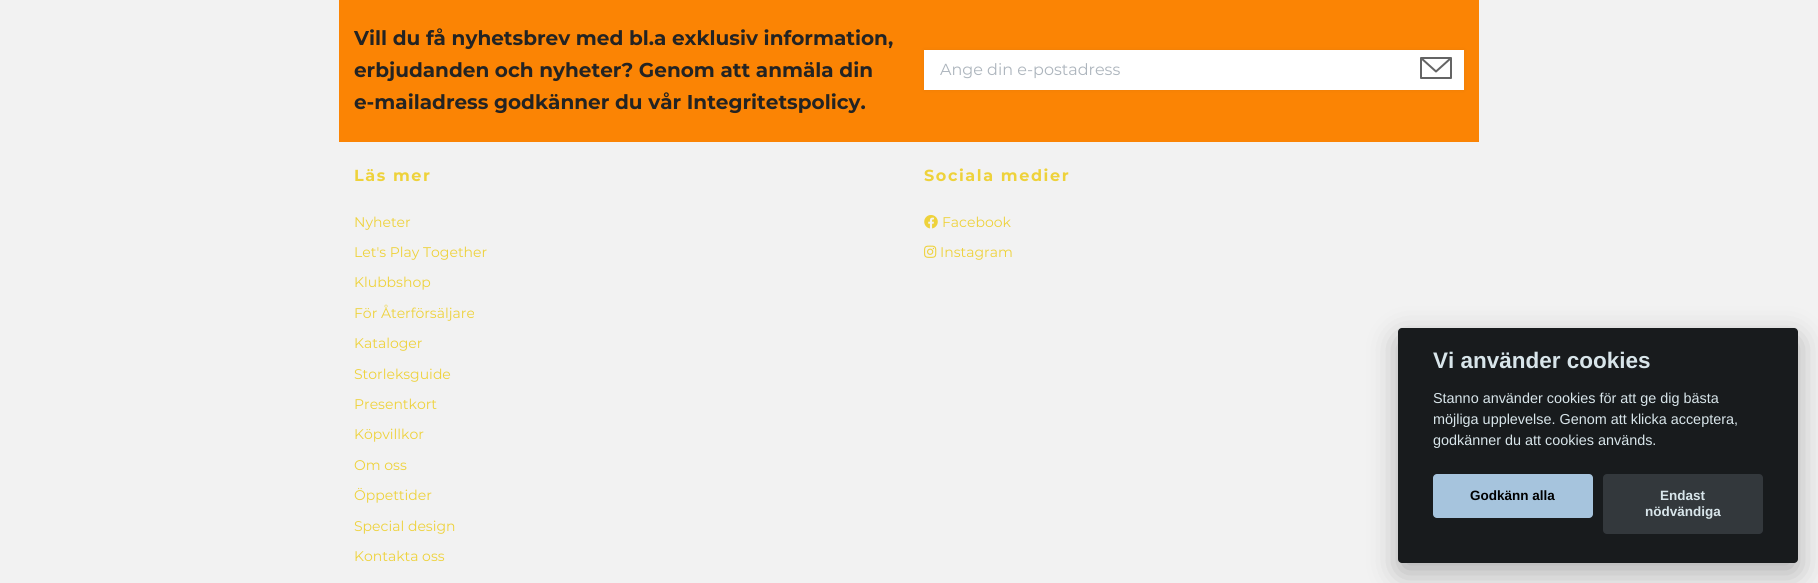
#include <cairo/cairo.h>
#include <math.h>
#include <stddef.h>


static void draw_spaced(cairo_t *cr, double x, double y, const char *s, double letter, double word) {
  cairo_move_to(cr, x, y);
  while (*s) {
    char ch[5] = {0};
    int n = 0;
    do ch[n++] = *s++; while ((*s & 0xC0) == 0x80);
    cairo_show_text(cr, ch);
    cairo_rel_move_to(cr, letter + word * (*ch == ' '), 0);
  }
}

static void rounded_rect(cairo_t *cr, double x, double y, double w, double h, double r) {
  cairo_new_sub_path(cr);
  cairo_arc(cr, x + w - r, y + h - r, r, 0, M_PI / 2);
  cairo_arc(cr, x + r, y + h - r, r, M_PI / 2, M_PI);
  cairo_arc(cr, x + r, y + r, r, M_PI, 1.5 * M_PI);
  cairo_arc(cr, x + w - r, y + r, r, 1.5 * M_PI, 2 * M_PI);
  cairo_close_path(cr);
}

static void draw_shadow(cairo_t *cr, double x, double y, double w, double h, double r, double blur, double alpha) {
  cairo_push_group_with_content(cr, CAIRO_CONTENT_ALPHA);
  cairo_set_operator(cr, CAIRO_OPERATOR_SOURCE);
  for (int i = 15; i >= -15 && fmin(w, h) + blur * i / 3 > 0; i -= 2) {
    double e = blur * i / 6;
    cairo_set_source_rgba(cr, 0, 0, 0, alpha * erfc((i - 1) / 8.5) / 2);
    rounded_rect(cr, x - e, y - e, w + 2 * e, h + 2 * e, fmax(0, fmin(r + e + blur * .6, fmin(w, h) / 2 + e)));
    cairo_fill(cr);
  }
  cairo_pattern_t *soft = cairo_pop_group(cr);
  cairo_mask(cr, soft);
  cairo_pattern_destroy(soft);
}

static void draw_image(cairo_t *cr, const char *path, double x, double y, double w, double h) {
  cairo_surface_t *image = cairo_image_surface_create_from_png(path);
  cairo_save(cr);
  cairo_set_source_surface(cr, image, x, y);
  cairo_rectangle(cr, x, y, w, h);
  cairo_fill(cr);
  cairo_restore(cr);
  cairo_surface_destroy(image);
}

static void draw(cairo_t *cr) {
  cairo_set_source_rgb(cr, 242 / 255.0, 242 / 255.0, 242 / 255.0);
  cairo_paint(cr);
  cairo_set_source_rgb(cr, 251 / 255.0, 132 / 255.0, 4 / 255.0);
  cairo_rectangle(cr, 339, 0, 1140, 142);
  cairo_fill(cr);
  cairo_set_source_rgb(cr, 34 / 255.0, 34 / 255.0, 34 / 255.0);
  draw_shadow(cr, 924, 50, 540, 40, 0, 2, 0.07);
  cairo_set_source_rgb(cr, 1, 1, 1);
  cairo_rectangle(cr, 924, 50, 540, 40);
  cairo_fill(cr);
  cairo_new_path(cr);
  cairo_move_to(cr, 1421, 58);
  cairo_line_to(cr, 1436, 71.5);
  cairo_line_to(cr, 1451, 58);
  cairo_move_to(cr, 1421, 58);
  cairo_line_to(cr, 1451, 58);
  cairo_line_to(cr, 1451, 78);
  cairo_line_to(cr, 1421, 78);
  cairo_close_path(cr);
  cairo_set_source_rgb(cr, 100 / 255.0, 100 / 255.0, 100 / 255.0);
  cairo_set_line_cap(cr, CAIRO_LINE_CAP_ROUND);
  cairo_set_line_join(cr, CAIRO_LINE_JOIN_ROUND);
  cairo_stroke(cr);
  draw_image(cr, "images/1.png", 924, 215, 14, 14);
  draw_image(cr, "images/2.png", 924, 245, 13, 13);
  cairo_set_source_rgb(cr, 2 / 255.0, 2 / 255.0, 3 / 255.0);
  draw_shadow(cr, 1398, 338, 400, 235, 4, 15, 0.28);
  cairo_set_source_rgb(cr, 24 / 255.0, 27 / 255.0, 29 / 255.0);
  rounded_rect(cr, 1398, 328, 400, 235, 4);
  cairo_fill(cr);
  cairo_set_source_rgb(cr, 166 / 255.0, 196 / 255.0, 221 / 255.0);
  rounded_rect(cr, 1433, 474, 160, 44, 4);
  cairo_fill(cr);
  cairo_set_source_rgb(cr, 51 / 255.0, 56 / 255.0, 60 / 255.0);
  rounded_rect(cr, 1603, 474, 160, 60, 4);
  cairo_fill(cr);
  cairo_select_font_face(cr, "Montserrat", CAIRO_FONT_SLANT_NORMAL, CAIRO_FONT_WEIGHT_BOLD);
  cairo_set_font_size(cr, 20);
  cairo_set_source_rgb(cr, 35 / 255.0, 35 / 255.0, 35 / 255.0);
  cairo_move_to(cr, 354, 45);
  cairo_show_text(cr, "Vill du få nyhetsbrev med bl.a exklusiv information,");
  cairo_move_to(cr, 354, 77);
  cairo_show_text(cr, "erbjudanden och nyheter? Genom att anmäla din");
  cairo_move_to(cr, 354, 109);
  cairo_show_text(cr, "e-mailadress godkänner du vår Integritetspolicy.");
  cairo_select_font_face(cr, "Montserrat", CAIRO_FONT_SLANT_NORMAL, CAIRO_FONT_WEIGHT_NORMAL);
  cairo_set_font_size(cr, 16);
  cairo_set_source_rgb(cr, 173 / 255.0, 181 / 255.0, 189 / 255.0);
  cairo_move_to(cr, 940, 75);
  cairo_show_text(cr, "Ange din e-postadress");
  cairo_select_font_face(cr, "Montserrat", CAIRO_FONT_SLANT_NORMAL, CAIRO_FONT_WEIGHT_BOLD);
  cairo_set_source_rgb(cr, 238 / 255.0, 210 / 255.0, 59 / 255.0);
  draw_spaced(cr, 354, 181, "Läs mer", 1.6, 0);
  cairo_select_font_face(cr, "Montserrat", CAIRO_FONT_SLANT_NORMAL, CAIRO_FONT_WEIGHT_NORMAL);
  cairo_set_font_size(cr, 14);
  cairo_move_to(cr, 354, 227);
  cairo_show_text(cr, "Nyheter");
  cairo_move_to(cr, 354, 257);
  cairo_show_text(cr, "Let's Play Together");
  cairo_move_to(cr, 354, 287);
  cairo_show_text(cr, "Klubbshop");
  cairo_move_to(cr, 354, 318);
  cairo_show_text(cr, "För Återförsäljare");
  cairo_move_to(cr, 354, 348);
  cairo_show_text(cr, "Kataloger");
  cairo_move_to(cr, 354, 379);
  cairo_show_text(cr, "Storleksguide");
  cairo_move_to(cr, 354, 409);
  cairo_show_text(cr, "Presentkort");
  cairo_move_to(cr, 354, 439);
  cairo_show_text(cr, "Köpvillkor");
  cairo_move_to(cr, 354, 470);
  cairo_show_text(cr, "Om oss");
  cairo_move_to(cr, 354, 500);
  cairo_show_text(cr, "Öppettider");
  cairo_move_to(cr, 354, 531);
  cairo_show_text(cr, "Special design");
  cairo_move_to(cr, 354, 561);
  cairo_show_text(cr, "Kontakta oss");
  cairo_select_font_face(cr, "Montserrat", CAIRO_FONT_SLANT_NORMAL, CAIRO_FONT_WEIGHT_BOLD);
  cairo_set_font_size(cr, 16);
  draw_spaced(cr, 924, 181, "Sociala medier", 1.6, 0);
  cairo_select_font_face(cr, "Montserrat", CAIRO_FONT_SLANT_NORMAL, CAIRO_FONT_WEIGHT_NORMAL);
  cairo_set_font_size(cr, 14);
  cairo_move_to(cr, 942, 227);
  cairo_show_text(cr, "Facebook");
  cairo_move_to(cr, 940, 257);
  cairo_show_text(cr, "Instagram");
  cairo_select_font_face(cr, "Liberation Sans", CAIRO_FONT_SLANT_NORMAL, CAIRO_FONT_WEIGHT_BOLD);
  cairo_set_font_size(cr, 22.5);
  cairo_set_source_rgb(cr, 216 / 255.0, 229 / 255.0, 234 / 255.0);
  cairo_move_to(cr, 1433, 368);
  cairo_show_text(cr, "Vi använder cookies");
  cairo_select_font_face(cr, "Liberation Sans", CAIRO_FONT_SLANT_NORMAL, CAIRO_FONT_WEIGHT_NORMAL);
  cairo_set_font_size(cr, 14.4);
  cairo_move_to(cr, 1433, 403);
  cairo_show_text(cr, "Stanno använder cookies för att ge dig bästa");
  cairo_move_to(cr, 1433, 424);
  cairo_show_text(cr, "möjliga upplevelse. Genom att klicka acceptera,");
  cairo_move_to(cr, 1433, 445);
  cairo_show_text(cr, "godkänner du att cookies används.");
  cairo_select_font_face(cr, "Liberation Sans", CAIRO_FONT_SLANT_NORMAL, CAIRO_FONT_WEIGHT_BOLD);
  cairo_set_font_size(cr, 13.5);
  cairo_set_source_rgb(cr, 0, 0, 0);
  cairo_move_to(cr, 1470, 500);
  cairo_show_text(cr, "Godkänn alla");
  cairo_set_source_rgb(cr, 216 / 255.0, 229 / 255.0, 234 / 255.0);
  cairo_move_to(cr, 1660, 500);
  cairo_show_text(cr, "Endast");
  cairo_move_to(cr, 1645, 516);
  cairo_show_text(cr, "nödvändiga");
}

int main(void) {
  cairo_surface_t *surface = cairo_image_surface_create(CAIRO_FORMAT_RGB24, 1818, 583);
  cairo_t *cr = cairo_create(surface);
  cairo_font_options_t *options = cairo_font_options_create();
  cairo_font_options_set_hint_metrics(options, CAIRO_HINT_METRICS_OFF);
  cairo_font_options_set_hint_style(options, CAIRO_HINT_STYLE_NONE);
  cairo_set_font_options(cr, options);
  cairo_set_miter_limit(cr, 4);
  draw(cr);
  cairo_surface_write_to_png(surface, "out.png");
  cairo_font_options_destroy(options);
  cairo_destroy(cr);
  cairo_surface_destroy(surface);
  return 0;
}
